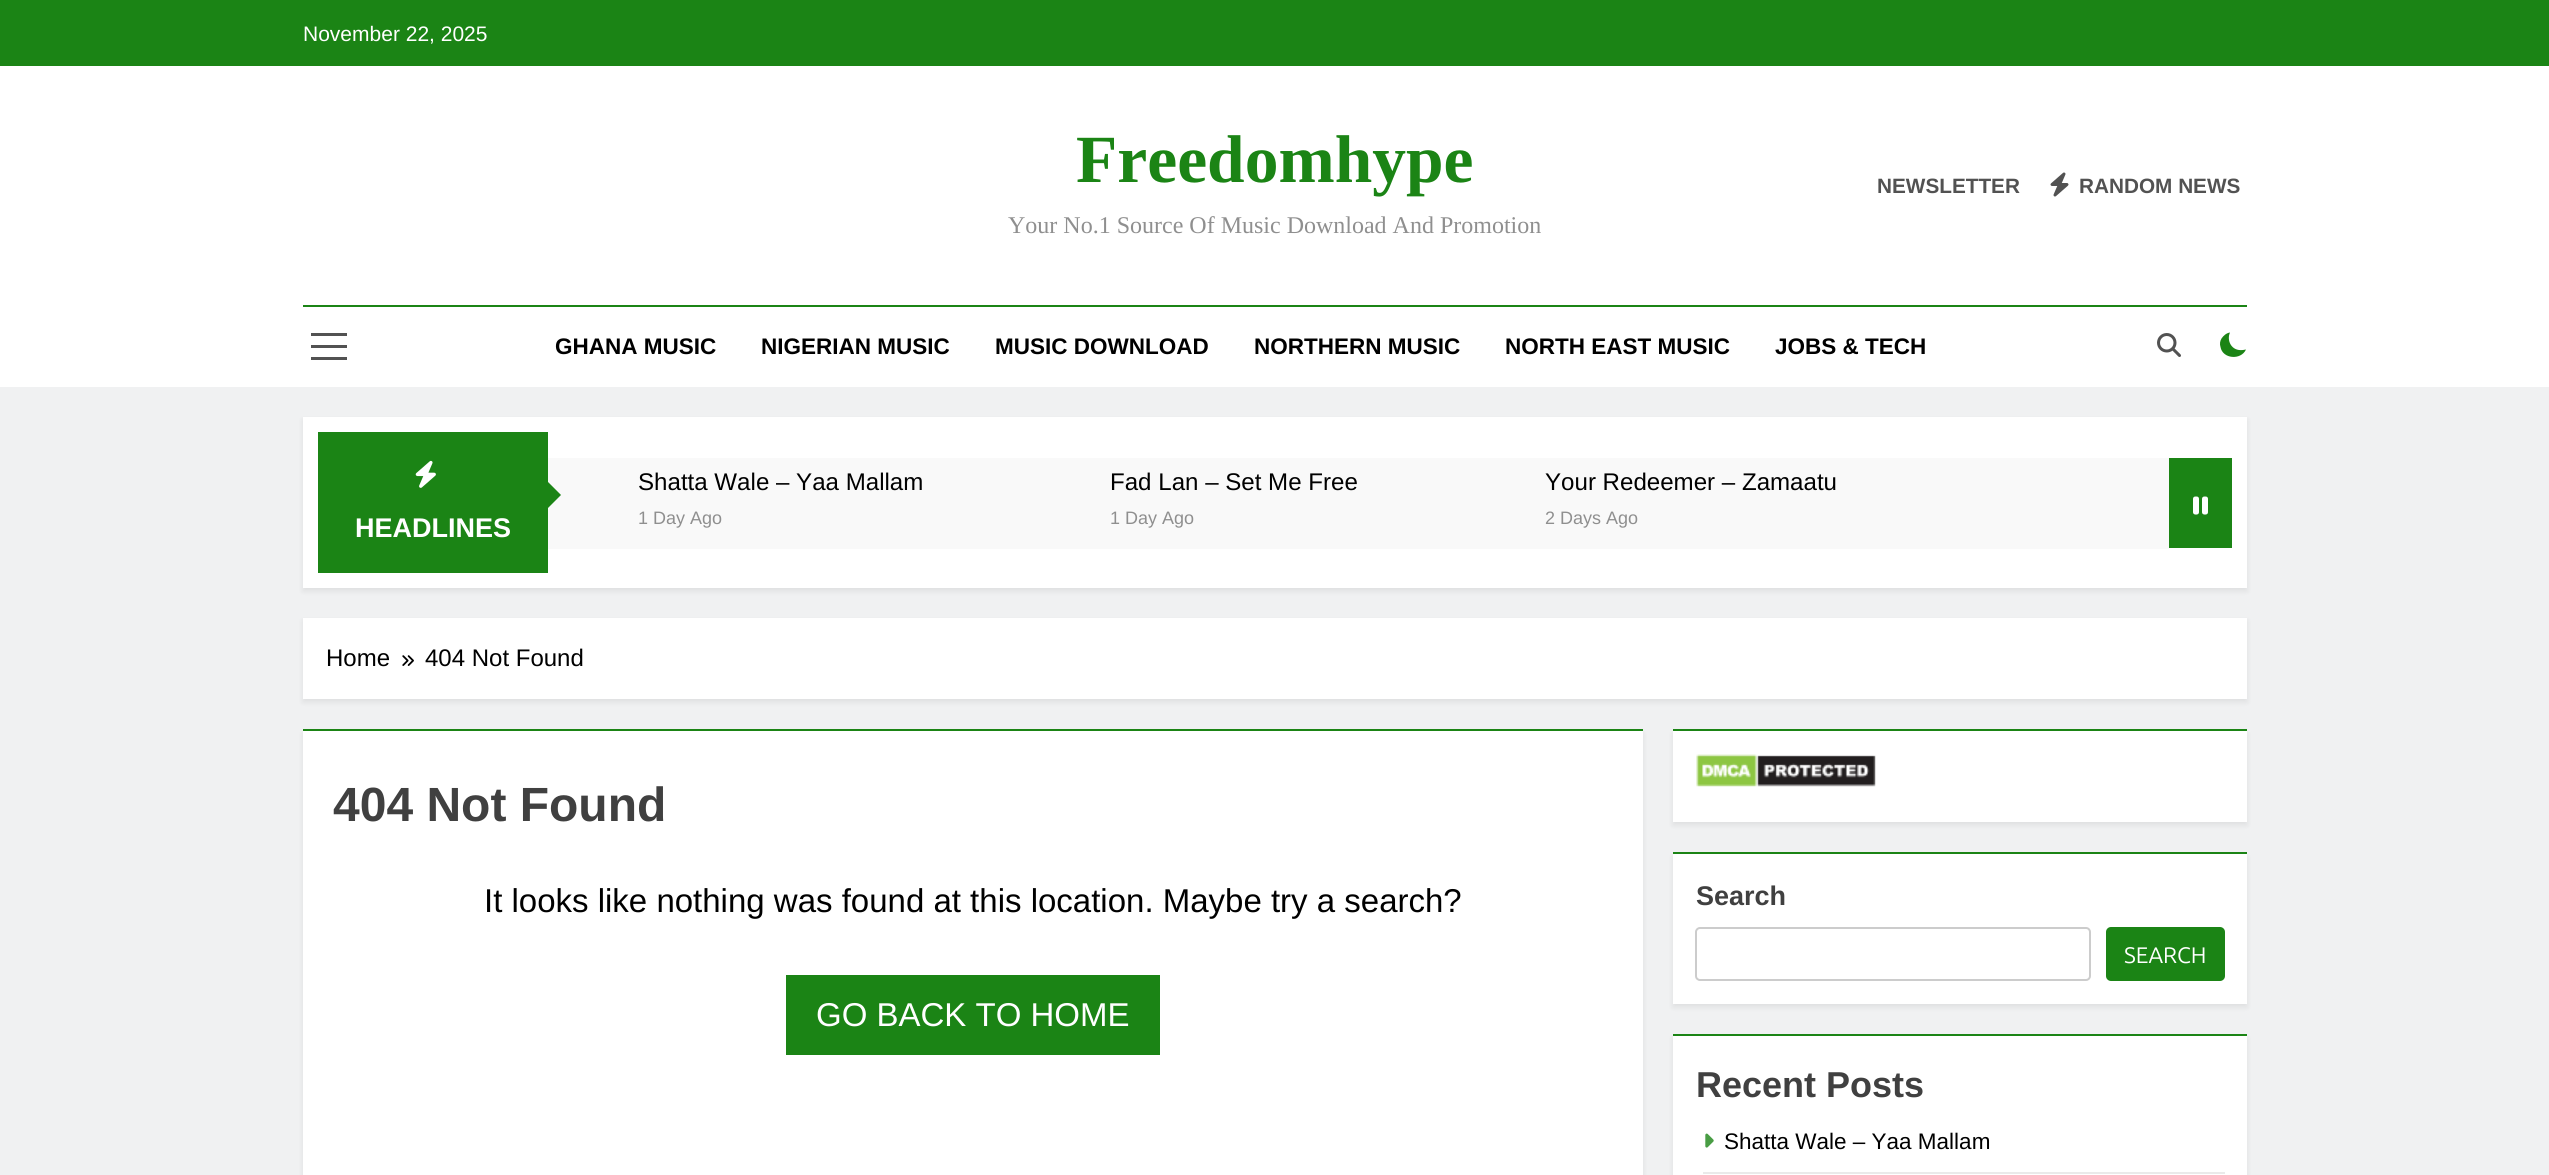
#include <cairo/cairo.h>
#include <math.h>
#include <stddef.h>


static void rounded_rect(cairo_t *cr, double x, double y, double w, double h, double r) {
  cairo_new_sub_path(cr);
  cairo_arc(cr, x + w - r, y + h - r, r, 0, M_PI / 2);
  cairo_arc(cr, x + r, y + h - r, r, M_PI / 2, M_PI);
  cairo_arc(cr, x + r, y + r, r, M_PI, 1.5 * M_PI);
  cairo_arc(cr, x + w - r, y + r, r, 1.5 * M_PI, 2 * M_PI);
  cairo_close_path(cr);
}

static void draw_shadow(cairo_t *cr, double x, double y, double w, double h, double r, double blur, double alpha) {
  cairo_push_group_with_content(cr, CAIRO_CONTENT_ALPHA);
  cairo_set_operator(cr, CAIRO_OPERATOR_SOURCE);
  for (int i = 15; i >= -15 && fmin(w, h) + blur * i / 3 > 0; i -= 2) {
    double e = blur * i / 6;
    cairo_set_source_rgba(cr, 0, 0, 0, alpha * erfc((i - 1) / 8.5) / 2);
    rounded_rect(cr, x - e, y - e, w + 2 * e, h + 2 * e, fmax(0, fmin(r + e + blur * .6, fmin(w, h) / 2 + e)));
    cairo_fill(cr);
  }
  cairo_pattern_t *soft = cairo_pop_group(cr);
  cairo_mask(cr, soft);
  cairo_pattern_destroy(soft);
}

static void draw_image(cairo_t *cr, const char *path, double x, double y, double w, double h) {
  cairo_surface_t *image = cairo_image_surface_create_from_png(path);
  cairo_save(cr);
  cairo_set_source_surface(cr, image, x, y);
  cairo_rectangle(cr, x, y, w, h);
  cairo_fill(cr);
  cairo_restore(cr);
  cairo_surface_destroy(image);
}

static void draw(cairo_t *cr) {
  cairo_set_source_rgb(cr, 240 / 255.0, 241 / 255.0, 242 / 255.0);
  cairo_paint(cr);
  cairo_set_source_rgb(cr, 27 / 255.0, 132 / 255.0, 21 / 255.0);
  cairo_rectangle(cr, 0, 0, 2549, 66);
  cairo_fill(cr);
  cairo_set_source_rgb(cr, 1, 1, 1);
  cairo_rectangle(cr, 0, 66, 2549, 321);
  cairo_fill(cr);
  draw_image(cr, "images/1.png", 2050, 172, 19, 25);
  cairo_set_source_rgb(cr, 27 / 255.0, 132 / 255.0, 21 / 255.0);
  cairo_rectangle(cr, 303, 305, 1944, 2);
  cairo_fill(cr);
  cairo_set_source_rgb(cr, 82 / 255.0, 82 / 255.0, 82 / 255.0);
  cairo_rectangle(cr, 311, 333, 36, 3);
  cairo_fill(cr);
  cairo_rectangle(cr, 311, 345, 36, 3);
  cairo_fill(cr);
  cairo_rectangle(cr, 311, 357, 36, 3);
  cairo_fill(cr);
  draw_image(cr, "images/2.png", 2157, 333, 24, 24);
  cairo_set_source_rgb(cr, 27 / 255.0, 132 / 255.0, 21 / 255.0);
  cairo_new_path(cr);
  cairo_move_to(cr, 2246, 349.5);
  cairo_line_to(cr, 2243, 350);
  cairo_curve_to(cr, 2231, 351.5, 2226.5, 340, 2230, 332.5);
  cairo_curve_to(cr, 2226.5, 333, 2223.5, 335.5, 2221.5, 338.5);
  cairo_curve_to(cr, 2220, 341, 2219.5, 344, 2220.5, 347);
  cairo_curve_to(cr, 2222.5, 359, 2241, 360.5, 2246, 349.5);
  cairo_close_path(cr);
  cairo_fill(cr);
  cairo_set_source_rgb(cr, 0, 0, 0);
  draw_shadow(cr, 303, 420, 1944, 171, 0, 3, 0.08);
  cairo_set_source_rgb(cr, 1, 1, 1);
  cairo_rectangle(cr, 303, 417, 1944, 171);
  cairo_fill(cr);
  cairo_set_source_rgb(cr, 27 / 255.0, 132 / 255.0, 21 / 255.0);
  cairo_rectangle(cr, 318, 432, 230, 141);
  cairo_fill(cr);
  draw_image(cr, "images/3.png", 415, 460, 21, 28);
  cairo_set_source_rgb(cr, 249 / 255.0, 249 / 255.0, 249 / 255.0);
  cairo_rectangle(cr, 548, 458, 1621, 91);
  cairo_fill(cr);
  cairo_set_source_rgb(cr, 27 / 255.0, 132 / 255.0, 21 / 255.0);
  cairo_new_path(cr);
  cairo_move_to(cr, 546, 510);
  cairo_line_to(cr, 546, 480);
  cairo_line_to(cr, 561, 495);
  cairo_close_path(cr);
  cairo_fill(cr);
  cairo_rectangle(cr, 2169, 458, 63, 90);
  cairo_fill(cr);
  draw_image(cr, "images/4.png", 2193, 496, 15, 19);
  cairo_set_source_rgb(cr, 0, 0, 0);
  draw_shadow(cr, 303, 621, 1944, 81, 0, 3, 0.08);
  cairo_set_source_rgb(cr, 1, 1, 1);
  cairo_rectangle(cr, 303, 618, 1944, 81);
  cairo_fill(cr);
  draw_image(cr, "images/5.png", 402, 655, 12, 11);
  cairo_set_source_rgb(cr, 0, 0, 0);
  draw_shadow(cr, 303, 734, 1340, 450, 0, 3, 0.08);
  cairo_set_source_rgb(cr, 1, 1, 1);
  cairo_rectangle(cr, 303, 731, 1340, 444);
  cairo_fill(cr);
  cairo_set_source_rgb(cr, 27 / 255.0, 132 / 255.0, 21 / 255.0);
  cairo_rectangle(cr, 303, 729, 1340, 2);
  cairo_fill(cr);
  cairo_rectangle(cr, 786, 975, 374, 80);
  cairo_fill(cr);
  cairo_set_source_rgb(cr, 0, 0, 0);
  draw_shadow(cr, 1673, 734, 574, 91, 0, 3, 0.08);
  cairo_set_source_rgb(cr, 1, 1, 1);
  cairo_rectangle(cr, 1673, 731, 574, 91);
  cairo_fill(cr);
  cairo_set_source_rgb(cr, 27 / 255.0, 132 / 255.0, 21 / 255.0);
  cairo_rectangle(cr, 1673, 729, 574, 2);
  cairo_fill(cr);
  draw_image(cr, "images/6.png", 1696, 754, 180, 33);
  cairo_set_source_rgb(cr, 0, 0, 0);
  draw_shadow(cr, 1673, 857, 574, 150, 0, 3, 0.08);
  cairo_set_source_rgb(cr, 1, 1, 1);
  cairo_rectangle(cr, 1673, 854, 574, 150);
  cairo_fill(cr);
  cairo_set_source_rgb(cr, 27 / 255.0, 132 / 255.0, 21 / 255.0);
  cairo_rectangle(cr, 1673, 852, 574, 2);
  cairo_fill(cr);
  rounded_rect(cr, 1696, 928, 394, 52, 4);
  cairo_set_source_rgb(cr, 204 / 255.0, 204 / 255.0, 204 / 255.0);
  cairo_stroke(cr);
  cairo_set_source_rgb(cr, 27 / 255.0, 132 / 255.0, 21 / 255.0);
  rounded_rect(cr, 2106, 927, 119, 54, 5);
  cairo_fill(cr);
  cairo_set_source_rgb(cr, 0, 0, 0);
  draw_shadow(cr, 1673, 1038, 574, 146, 0, 3, 0.08);
  cairo_set_source_rgb(cr, 1, 1, 1);
  cairo_rectangle(cr, 1673, 1036, 574, 139);
  cairo_fill(cr);
  cairo_set_source_rgb(cr, 27 / 255.0, 132 / 255.0, 21 / 255.0);
  cairo_rectangle(cr, 1673, 1034, 574, 2);
  cairo_fill(cr);
  cairo_set_source_rgb(cr, 234 / 255.0, 234 / 255.0, 234 / 255.0);
  cairo_rectangle(cr, 1703, 1172, 522, 2);
  cairo_fill(cr);
  draw_image(cr, "images/7.png", 1705, 1133, 9, 15);
  cairo_select_font_face(cr, "Liberation Sans", CAIRO_FONT_SLANT_NORMAL, CAIRO_FONT_WEIGHT_NORMAL);
  cairo_set_font_size(cr, 21);
  cairo_set_source_rgb(cr, 1, 1, 1);
  cairo_move_to(cr, 303, 41);
  cairo_show_text(cr, "November 22, 2025");
  cairo_select_font_face(cr, "Liberation Serif", CAIRO_FONT_SLANT_NORMAL, CAIRO_FONT_WEIGHT_BOLD);
  cairo_set_font_size(cr, 67.5);
  cairo_set_source_rgb(cr, 27 / 255.0, 132 / 255.0, 21 / 255.0);
  cairo_move_to(cr, 1076, 182);
  cairo_show_text(cr, "Freedomhype");
  cairo_select_font_face(cr, "Liberation Serif", CAIRO_FONT_SLANT_NORMAL, CAIRO_FONT_WEIGHT_NORMAL);
  cairo_set_font_size(cr, 24);
  cairo_set_source_rgb(cr, 143 / 255.0, 143 / 255.0, 143 / 255.0);
  cairo_move_to(cr, 1008, 233);
  cairo_show_text(cr, "Your No.1 Source Of Music Download And Promotion");
  cairo_select_font_face(cr, "Liberation Sans", CAIRO_FONT_SLANT_NORMAL, CAIRO_FONT_WEIGHT_BOLD);
  cairo_set_font_size(cr, 20.75);
  cairo_set_source_rgb(cr, 82 / 255.0, 82 / 255.0, 82 / 255.0);
  cairo_move_to(cr, 1877, 193);
  cairo_show_text(cr, "NEWSLETTER");
  cairo_move_to(cr, 2079, 193);
  cairo_show_text(cr, "RANDOM NEWS");
  cairo_set_font_size(cr, 22.5);
  cairo_set_source_rgb(cr, 0, 0, 0);
  cairo_move_to(cr, 555, 354);
  cairo_show_text(cr, "GHANA MUSIC");
  cairo_move_to(cr, 761, 354);
  cairo_show_text(cr, "NIGERIAN MUSIC");
  cairo_move_to(cr, 995, 354);
  cairo_show_text(cr, "MUSIC DOWNLOAD");
  cairo_move_to(cr, 1254, 354);
  cairo_show_text(cr, "NORTHERN MUSIC");
  cairo_move_to(cr, 1505, 354);
  cairo_show_text(cr, "NORTH EAST MUSIC");
  cairo_move_to(cr, 1775, 354);
  cairo_show_text(cr, "JOBS & TECH");
  cairo_set_font_size(cr, 27);
  cairo_set_source_rgb(cr, 1, 1, 1);
  cairo_move_to(cr, 355, 537);
  cairo_show_text(cr, "HEADLINES");
  cairo_select_font_face(cr, "Liberation Sans", CAIRO_FONT_SLANT_NORMAL, CAIRO_FONT_WEIGHT_NORMAL);
  cairo_set_font_size(cr, 24.1);
  cairo_set_source_rgb(cr, 0, 0, 0);
  cairo_move_to(cr, 638, 490);
  cairo_show_text(cr, "Shatta Wale – Yaa Mallam");
  cairo_set_font_size(cr, 18);
  cairo_set_source_rgb(cr, 143 / 255.0, 143 / 255.0, 143 / 255.0);
  cairo_move_to(cr, 638, 524);
  cairo_show_text(cr, "1 Day Ago");
  cairo_set_font_size(cr, 24.1);
  cairo_set_source_rgb(cr, 0, 0, 0);
  cairo_move_to(cr, 1110, 490);
  cairo_show_text(cr, "Fad Lan – Set Me Free");
  cairo_set_font_size(cr, 18);
  cairo_set_source_rgb(cr, 143 / 255.0, 143 / 255.0, 143 / 255.0);
  cairo_move_to(cr, 1110, 524);
  cairo_show_text(cr, "1 Day Ago");
  cairo_set_font_size(cr, 24.1);
  cairo_set_source_rgb(cr, 0, 0, 0);
  cairo_move_to(cr, 1545, 490);
  cairo_show_text(cr, "Your Redeemer – Zamaatu");
  cairo_set_font_size(cr, 18);
  cairo_set_source_rgb(cr, 143 / 255.0, 143 / 255.0, 143 / 255.0);
  cairo_move_to(cr, 1545, 524);
  cairo_show_text(cr, "2 Days Ago");
  cairo_set_font_size(cr, 24);
  cairo_set_source_rgb(cr, 0, 0, 0);
  cairo_move_to(cr, 326, 666);
  cairo_show_text(cr, "Home");
  cairo_move_to(cr, 425, 666);
  cairo_show_text(cr, "404 Not Found");
  cairo_select_font_face(cr, "Liberation Sans", CAIRO_FONT_SLANT_NORMAL, CAIRO_FONT_WEIGHT_BOLD);
  cairo_set_font_size(cr, 48);
  cairo_set_source_rgb(cr, 64 / 255.0, 64 / 255.0, 64 / 255.0);
  cairo_move_to(cr, 333, 821);
  cairo_show_text(cr, "404 Not Found");
  cairo_select_font_face(cr, "Liberation Sans", CAIRO_FONT_SLANT_NORMAL, CAIRO_FONT_WEIGHT_NORMAL);
  cairo_set_font_size(cr, 33);
  cairo_set_source_rgb(cr, 0, 0, 0);
  cairo_move_to(cr, 484, 912);
  cairo_show_text(cr, "It looks like nothing was found at this location. Maybe try a search?");
  cairo_set_source_rgb(cr, 1, 1, 1);
  cairo_move_to(cr, 816, 1026);
  cairo_show_text(cr, "GO BACK TO HOME");
  cairo_select_font_face(cr, "Liberation Sans", CAIRO_FONT_SLANT_NORMAL, CAIRO_FONT_WEIGHT_BOLD);
  cairo_set_font_size(cr, 27);
  cairo_set_source_rgb(cr, 64 / 255.0, 64 / 255.0, 64 / 255.0);
  cairo_move_to(cr, 1696, 905);
  cairo_show_text(cr, "Search");
  cairo_select_font_face(cr, "Ubuntu", CAIRO_FONT_SLANT_NORMAL, CAIRO_FONT_WEIGHT_NORMAL);
  cairo_set_font_size(cr, 22.5);
  cairo_set_source_rgb(cr, 1, 1, 1);
  cairo_move_to(cr, 2124, 963);
  cairo_show_text(cr, "SEARCH");
  cairo_select_font_face(cr, "Liberation Sans", CAIRO_FONT_SLANT_NORMAL, CAIRO_FONT_WEIGHT_BOLD);
  cairo_set_font_size(cr, 36);
  cairo_set_source_rgb(cr, 64 / 255.0, 64 / 255.0, 64 / 255.0);
  cairo_move_to(cr, 1696, 1097);
  cairo_show_text(cr, "Recent Posts");
  cairo_select_font_face(cr, "Liberation Sans", CAIRO_FONT_SLANT_NORMAL, CAIRO_FONT_WEIGHT_NORMAL);
  cairo_set_font_size(cr, 22.5);
  cairo_set_source_rgb(cr, 0, 0, 0);
  cairo_move_to(cr, 1724, 1149);
  cairo_show_text(cr, "Shatta Wale – Yaa Mallam");
}

int main(void) {
  cairo_surface_t *surface = cairo_image_surface_create(CAIRO_FORMAT_RGB24, 2549, 1175);
  cairo_t *cr = cairo_create(surface);
  cairo_font_options_t *options = cairo_font_options_create();
  cairo_font_options_set_hint_metrics(options, CAIRO_HINT_METRICS_OFF);
  cairo_font_options_set_hint_style(options, CAIRO_HINT_STYLE_NONE);
  cairo_set_font_options(cr, options);
  cairo_set_miter_limit(cr, 4);
  draw(cr);
  cairo_surface_write_to_png(surface, "out.png");
  cairo_font_options_destroy(options);
  cairo_destroy(cr);
  cairo_surface_destroy(surface);
  return 0;
}
